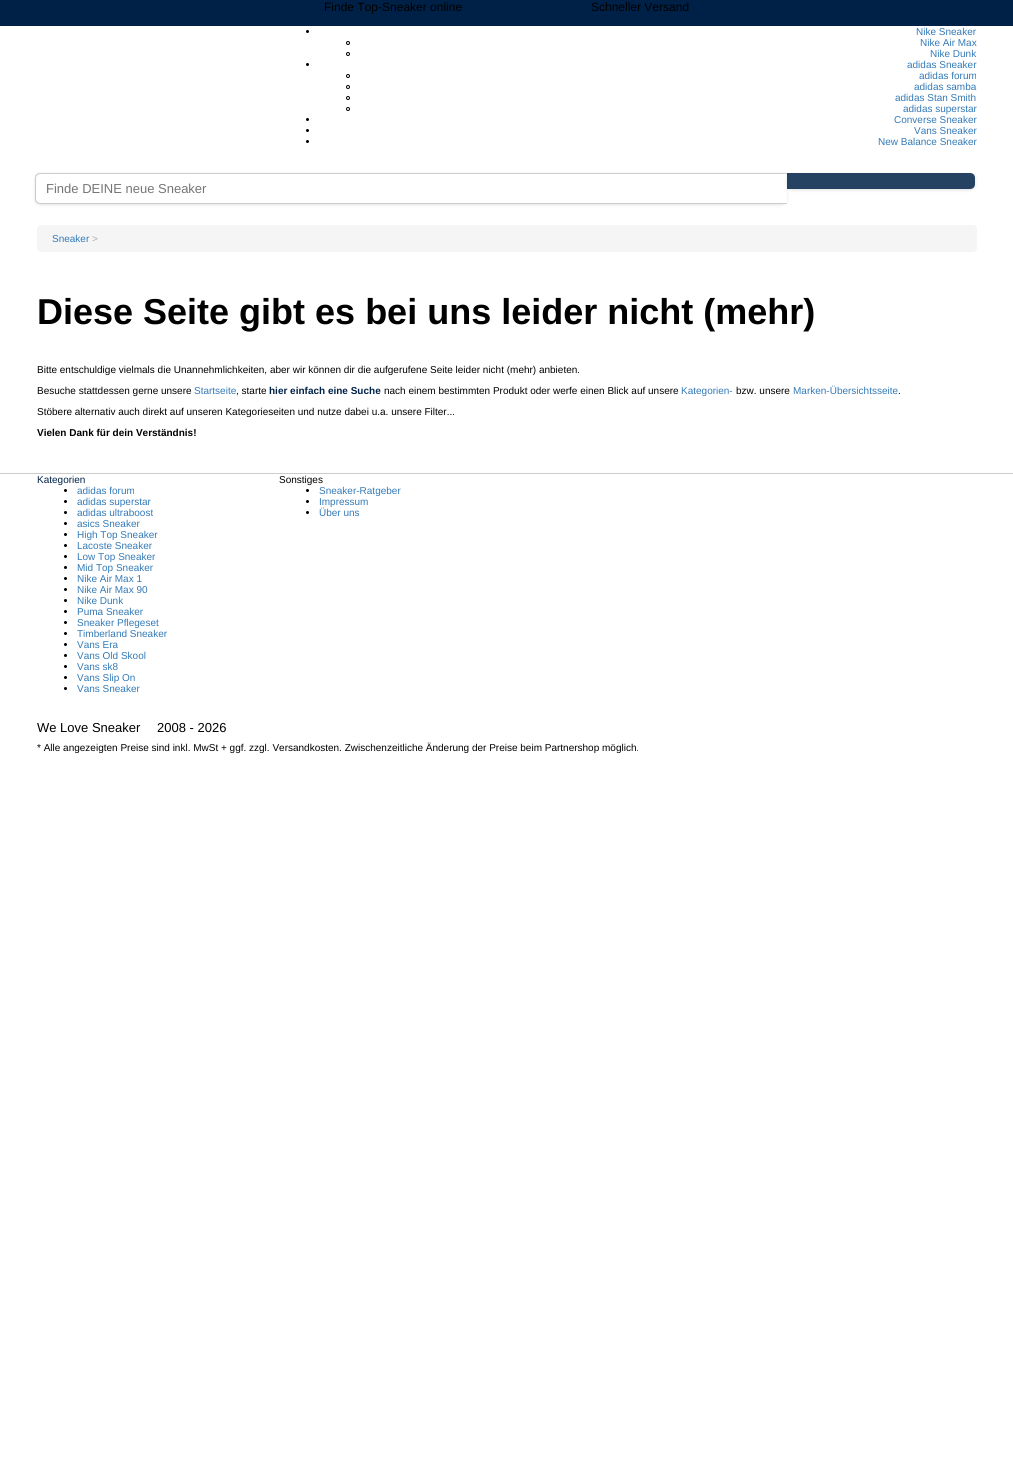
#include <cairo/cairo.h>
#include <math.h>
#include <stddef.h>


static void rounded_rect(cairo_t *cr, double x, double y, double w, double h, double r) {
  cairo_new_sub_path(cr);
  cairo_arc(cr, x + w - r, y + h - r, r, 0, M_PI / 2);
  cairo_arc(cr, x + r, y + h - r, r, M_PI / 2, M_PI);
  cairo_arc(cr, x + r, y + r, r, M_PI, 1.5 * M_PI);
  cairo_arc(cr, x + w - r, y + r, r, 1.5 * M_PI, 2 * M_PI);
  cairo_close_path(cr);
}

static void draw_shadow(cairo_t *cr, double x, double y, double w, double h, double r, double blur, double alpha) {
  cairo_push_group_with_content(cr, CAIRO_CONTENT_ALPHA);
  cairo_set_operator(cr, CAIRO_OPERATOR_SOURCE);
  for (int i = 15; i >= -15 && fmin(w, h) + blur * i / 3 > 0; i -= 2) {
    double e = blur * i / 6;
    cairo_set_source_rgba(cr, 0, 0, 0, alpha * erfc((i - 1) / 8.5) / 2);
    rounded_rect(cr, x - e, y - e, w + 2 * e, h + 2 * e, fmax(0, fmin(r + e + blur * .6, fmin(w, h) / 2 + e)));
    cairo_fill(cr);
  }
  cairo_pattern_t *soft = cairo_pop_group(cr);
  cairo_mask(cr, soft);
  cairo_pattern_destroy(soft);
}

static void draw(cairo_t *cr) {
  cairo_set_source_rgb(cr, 1, 1, 1);
  cairo_paint(cr);
  cairo_set_source_rgb(cr, 0, 33 / 255.0, 71 / 255.0);
  cairo_rectangle(cr, 0, 0, 1013, 26);
  cairo_fill(cr);
  cairo_set_source_rgb(cr, 0, 0, 0);
  cairo_arc(cr, 307.5, 31.5, 1.5, 0, 2 * M_PI);
  cairo_fill(cr);
  cairo_arc(cr, 348, 43, 1.5, 0, 2 * M_PI);
  cairo_set_line_width(cr, 1);
  cairo_stroke(cr);
  cairo_arc(cr, 348, 54, 1.5, 0, 2 * M_PI);
  cairo_stroke(cr);
  cairo_arc(cr, 307.5, 64.5, 1.5, 0, 2 * M_PI);
  cairo_fill(cr);
  cairo_arc(cr, 348, 76, 1.5, 0, 2 * M_PI);
  cairo_stroke(cr);
  cairo_arc(cr, 348, 87, 1.5, 0, 2 * M_PI);
  cairo_stroke(cr);
  cairo_arc(cr, 348, 98, 1.5, 0, 2 * M_PI);
  cairo_stroke(cr);
  cairo_arc(cr, 348, 109, 1.5, 0, 2 * M_PI);
  cairo_stroke(cr);
  cairo_arc(cr, 307.5, 119.5, 1.5, 0, 2 * M_PI);
  cairo_fill(cr);
  cairo_arc(cr, 307.5, 130.5, 1.5, 0, 2 * M_PI);
  cairo_fill(cr);
  cairo_arc(cr, 307.5, 141.5, 1.5, 0, 2 * M_PI);
  cairo_fill(cr);
  cairo_set_source_rgb(cr, 0, 0, 0);
  draw_shadow(cr, 35, 174, 752, 31, 5, 1.5, 0.1);
  cairo_set_source_rgb(cr, 1, 1, 1);
  cairo_new_path(cr);
  cairo_move_to(cr, 40, 173);
  cairo_line_to(cr, 787, 173);
  cairo_line_to(cr, 787, 204);
  cairo_line_to(cr, 40, 204);
  cairo_curve_to(cr, 37, 204, 35, 202, 35, 199);
  cairo_line_to(cr, 35, 178);
  cairo_curve_to(cr, 35, 175, 37, 173, 40, 173);
  cairo_close_path(cr);
  cairo_fill(cr);
  cairo_set_source_rgb(cr, 204 / 255.0, 204 / 255.0, 204 / 255.0);
  cairo_set_fill_rule(cr, CAIRO_FILL_RULE_EVEN_ODD);
  cairo_new_path(cr);
  cairo_move_to(cr, 40, 173);
  cairo_line_to(cr, 787, 173);
  cairo_line_to(cr, 787, 204);
  cairo_line_to(cr, 40, 204);
  cairo_curve_to(cr, 37, 204, 35, 202, 35, 199);
  cairo_line_to(cr, 35, 178);
  cairo_curve_to(cr, 35, 175, 37, 173, 40, 173);
  cairo_close_path(cr);
  cairo_move_to(cr, 40, 174);
  cairo_line_to(cr, 787, 174);
  cairo_line_to(cr, 787, 203);
  cairo_line_to(cr, 40, 203);
  cairo_curve_to(cr, 38, 203, 36, 201, 36, 199);
  cairo_line_to(cr, 36, 178);
  cairo_curve_to(cr, 36, 176, 38, 174, 40, 174);
  cairo_close_path(cr);
  cairo_fill(cr);
  cairo_save(cr);
  cairo_new_path(cr);
  cairo_move_to(cr, 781, 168);
  cairo_line_to(cr, 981, 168);
  cairo_line_to(cr, 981, 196);
  cairo_line_to(cr, 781, 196);
  cairo_close_path(cr);
  cairo_move_to(cr, 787, 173);
  cairo_line_to(cr, 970, 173);
  cairo_curve_to(cr, 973, 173, 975, 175, 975, 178);
  cairo_line_to(cr, 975, 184);
  cairo_curve_to(cr, 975, 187, 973, 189, 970, 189);
  cairo_line_to(cr, 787, 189);
  cairo_close_path(cr);
  cairo_clip(cr);
  cairo_set_source_rgb(cr, 0, 0, 0);
  draw_shadow(cr, 787, 174, 188, 16, 5, 1.5, 0.13);
  cairo_restore(cr);
  cairo_set_source_rgba(cr, 0, 33 / 255.0, 71 / 255.0, 0.85);
  cairo_new_path(cr);
  cairo_move_to(cr, 787, 173);
  cairo_line_to(cr, 970, 173);
  cairo_curve_to(cr, 973, 173, 975, 175, 975, 178);
  cairo_line_to(cr, 975, 184);
  cairo_curve_to(cr, 975, 187, 973, 189, 970, 189);
  cairo_line_to(cr, 787, 189);
  cairo_close_path(cr);
  cairo_fill(cr);
  cairo_set_source_rgb(cr, 245 / 255.0, 245 / 255.0, 245 / 255.0);
  rounded_rect(cr, 37, 225, 940, 27, 4);
  cairo_fill(cr);
  cairo_set_source_rgb(cr, 204 / 255.0, 204 / 255.0, 204 / 255.0);
  cairo_rectangle(cr, 0, 473, 1013, 1);
  cairo_fill(cr);
  cairo_set_source_rgb(cr, 0, 0, 0);
  cairo_arc(cr, 65.5, 490.5, 1.5, 0, 2 * M_PI);
  cairo_fill(cr);
  cairo_arc(cr, 65.5, 501.5, 1.5, 0, 2 * M_PI);
  cairo_fill(cr);
  cairo_arc(cr, 65.5, 512.5, 1.5, 0, 2 * M_PI);
  cairo_fill(cr);
  cairo_arc(cr, 65.5, 523.5, 1.5, 0, 2 * M_PI);
  cairo_fill(cr);
  cairo_arc(cr, 65.5, 534.5, 1.5, 0, 2 * M_PI);
  cairo_fill(cr);
  cairo_arc(cr, 65.5, 545.5, 1.5, 0, 2 * M_PI);
  cairo_fill(cr);
  cairo_arc(cr, 65.5, 556.5, 1.5, 0, 2 * M_PI);
  cairo_fill(cr);
  cairo_arc(cr, 65.5, 567.5, 1.5, 0, 2 * M_PI);
  cairo_fill(cr);
  cairo_arc(cr, 65.5, 578.5, 1.5, 0, 2 * M_PI);
  cairo_fill(cr);
  cairo_arc(cr, 65.5, 589.5, 1.5, 0, 2 * M_PI);
  cairo_fill(cr);
  cairo_arc(cr, 65.5, 600.5, 1.5, 0, 2 * M_PI);
  cairo_fill(cr);
  cairo_arc(cr, 65.5, 611.5, 1.5, 0, 2 * M_PI);
  cairo_fill(cr);
  cairo_arc(cr, 65.5, 622.5, 1.5, 0, 2 * M_PI);
  cairo_fill(cr);
  cairo_arc(cr, 65.5, 633.5, 1.5, 0, 2 * M_PI);
  cairo_fill(cr);
  cairo_arc(cr, 65.5, 644.5, 1.5, 0, 2 * M_PI);
  cairo_fill(cr);
  cairo_arc(cr, 65.5, 655.5, 1.5, 0, 2 * M_PI);
  cairo_fill(cr);
  cairo_arc(cr, 65.5, 666.5, 1.5, 0, 2 * M_PI);
  cairo_fill(cr);
  cairo_arc(cr, 65.5, 677.5, 1.5, 0, 2 * M_PI);
  cairo_fill(cr);
  cairo_arc(cr, 65.5, 688.5, 1.5, 0, 2 * M_PI);
  cairo_fill(cr);
  cairo_arc(cr, 307.5, 490.5, 1.5, 0, 2 * M_PI);
  cairo_fill(cr);
  cairo_arc(cr, 307.5, 501.5, 1.5, 0, 2 * M_PI);
  cairo_fill(cr);
  cairo_arc(cr, 307.5, 512.5, 1.5, 0, 2 * M_PI);
  cairo_fill(cr);
  cairo_select_font_face(cr, "Liberation Sans", CAIRO_FONT_SLANT_NORMAL, CAIRO_FONT_WEIGHT_NORMAL);
  cairo_set_font_size(cr, 12);
  cairo_move_to(cr, 324, 11);
  cairo_show_text(cr, "Finde Top-Sneaker online");
  cairo_move_to(cr, 591, 11);
  cairo_show_text(cr, "Schneller Versand");
  cairo_set_font_size(cr, 10);
  cairo_set_source_rgb(cr, 51 / 255.0, 122 / 255.0, 183 / 255.0);
  cairo_move_to(cr, 916, 35);
  cairo_show_text(cr, "Nike Sneaker");
  cairo_move_to(cr, 920, 46);
  cairo_show_text(cr, "Nike Air Max");
  cairo_move_to(cr, 930, 57);
  cairo_show_text(cr, "Nike Dunk");
  cairo_move_to(cr, 907, 68);
  cairo_show_text(cr, "adidas Sneaker");
  cairo_move_to(cr, 919, 79);
  cairo_show_text(cr, "adidas forum");
  cairo_move_to(cr, 914, 90);
  cairo_show_text(cr, "adidas samba");
  cairo_move_to(cr, 895, 101);
  cairo_show_text(cr, "adidas Stan Smith");
  cairo_move_to(cr, 903, 112);
  cairo_show_text(cr, "adidas superstar");
  cairo_move_to(cr, 894, 123);
  cairo_show_text(cr, "Converse Sneaker");
  cairo_move_to(cr, 914, 134);
  cairo_show_text(cr, "Vans Sneaker");
  cairo_move_to(cr, 878, 145);
  cairo_show_text(cr, "New Balance Sneaker");
  cairo_set_font_size(cr, 13);
  cairo_set_source_rgb(cr, 117 / 255.0, 117 / 255.0, 117 / 255.0);
  cairo_move_to(cr, 46, 193);
  cairo_show_text(cr, "Finde DEINE neue Sneaker");
  cairo_set_font_size(cr, 10);
  cairo_set_source_rgb(cr, 51 / 255.0, 122 / 255.0, 183 / 255.0);
  cairo_move_to(cr, 52, 242);
  cairo_show_text(cr, "Sneaker");
  cairo_set_source_rgb(cr, 173 / 255.0, 173 / 255.0, 173 / 255.0);
  cairo_move_to(cr, 92, 242);
  cairo_show_text(cr, ">");
  cairo_select_font_face(cr, "Liberation Sans", CAIRO_FONT_SLANT_NORMAL, CAIRO_FONT_WEIGHT_BOLD);
  cairo_set_font_size(cr, 36);
  cairo_set_source_rgb(cr, 0, 0, 0);
  cairo_move_to(cr, 37, 324);
  cairo_show_text(cr, "Diese Seite gibt es bei uns leider nicht (mehr)");
  cairo_select_font_face(cr, "Liberation Sans", CAIRO_FONT_SLANT_NORMAL, CAIRO_FONT_WEIGHT_NORMAL);
  cairo_set_font_size(cr, 10);
  cairo_move_to(cr, 37, 373);
  cairo_show_text(cr, "Bitte entschuldige vielmals die Unannehmlichkeiten, aber wir können dir die aufgerufene Seite leider nicht (mehr) anbieten.");
  cairo_move_to(cr, 37, 394);
  cairo_show_text(cr, "Besuche stattdessen gerne unsere");
  cairo_set_source_rgb(cr, 51 / 255.0, 122 / 255.0, 183 / 255.0);
  cairo_move_to(cr, 194, 394);
  cairo_show_text(cr, "Startseite");
  cairo_set_source_rgb(cr, 0, 0, 0);
  cairo_move_to(cr, 236, 394);
  cairo_show_text(cr, ", starte");
  cairo_select_font_face(cr, "Liberation Sans", CAIRO_FONT_SLANT_NORMAL, CAIRO_FONT_WEIGHT_BOLD);
  cairo_set_source_rgb(cr, 0, 33 / 255.0, 71 / 255.0);
  cairo_move_to(cr, 269, 394);
  cairo_show_text(cr, "hier einfach eine Suche");
  cairo_select_font_face(cr, "Liberation Sans", CAIRO_FONT_SLANT_NORMAL, CAIRO_FONT_WEIGHT_NORMAL);
  cairo_set_source_rgb(cr, 0, 0, 0);
  cairo_move_to(cr, 384, 394);
  cairo_show_text(cr, "nach einem bestimmten Produkt oder werfe einen Blick auf unsere");
  cairo_set_source_rgb(cr, 51 / 255.0, 122 / 255.0, 183 / 255.0);
  cairo_move_to(cr, 681, 394);
  cairo_show_text(cr, "Kategorien-");
  cairo_set_source_rgb(cr, 0, 0, 0);
  cairo_move_to(cr, 736, 394);
  cairo_show_text(cr, "bzw. unsere");
  cairo_set_source_rgb(cr, 51 / 255.0, 122 / 255.0, 183 / 255.0);
  cairo_move_to(cr, 793, 394);
  cairo_show_text(cr, "Marken-Übersichtsseite");
  cairo_set_source_rgb(cr, 0, 0, 0);
  cairo_move_to(cr, 898, 394);
  cairo_show_text(cr, ".");
  cairo_move_to(cr, 37, 415);
  cairo_show_text(cr, "Stöbere alternativ auch direkt auf unseren Kategorieseiten und nutze dabei u.a. unsere Filter...");
  cairo_select_font_face(cr, "Liberation Sans", CAIRO_FONT_SLANT_NORMAL, CAIRO_FONT_WEIGHT_BOLD);
  cairo_move_to(cr, 37, 436);
  cairo_show_text(cr, "Vielen Dank für dein Verständnis!");
  cairo_select_font_face(cr, "Liberation Sans", CAIRO_FONT_SLANT_NORMAL, CAIRO_FONT_WEIGHT_NORMAL);
  cairo_set_source_rgb(cr, 0, 33 / 255.0, 71 / 255.0);
  cairo_move_to(cr, 37, 483);
  cairo_show_text(cr, "Kategorien");
  cairo_set_source_rgb(cr, 51 / 255.0, 122 / 255.0, 183 / 255.0);
  cairo_move_to(cr, 77, 494);
  cairo_show_text(cr, "adidas forum");
  cairo_move_to(cr, 77, 505);
  cairo_show_text(cr, "adidas superstar");
  cairo_move_to(cr, 77, 516);
  cairo_show_text(cr, "adidas ultraboost");
  cairo_move_to(cr, 77, 527);
  cairo_show_text(cr, "asics Sneaker");
  cairo_move_to(cr, 77, 538);
  cairo_show_text(cr, "High Top Sneaker");
  cairo_move_to(cr, 77, 549);
  cairo_show_text(cr, "Lacoste Sneaker");
  cairo_move_to(cr, 77, 560);
  cairo_show_text(cr, "Low Top Sneaker");
  cairo_move_to(cr, 77, 571);
  cairo_show_text(cr, "Mid Top Sneaker");
  cairo_move_to(cr, 77, 582);
  cairo_show_text(cr, "Nike Air Max 1");
  cairo_move_to(cr, 77, 593);
  cairo_show_text(cr, "Nike Air Max 90");
  cairo_move_to(cr, 77, 604);
  cairo_show_text(cr, "Nike Dunk");
  cairo_move_to(cr, 77, 615);
  cairo_show_text(cr, "Puma Sneaker");
  cairo_move_to(cr, 77, 626);
  cairo_show_text(cr, "Sneaker Pflegeset");
  cairo_move_to(cr, 77, 637);
  cairo_show_text(cr, "Timberland Sneaker");
  cairo_move_to(cr, 77, 648);
  cairo_show_text(cr, "Vans Era");
  cairo_move_to(cr, 77, 659);
  cairo_show_text(cr, "Vans Old Skool");
  cairo_move_to(cr, 77, 670);
  cairo_show_text(cr, "Vans sk8");
  cairo_move_to(cr, 77, 681);
  cairo_show_text(cr, "Vans Slip On");
  cairo_move_to(cr, 77, 692);
  cairo_show_text(cr, "Vans Sneaker");
  cairo_set_source_rgb(cr, 0, 0, 0);
  cairo_move_to(cr, 279, 483);
  cairo_show_text(cr, "Sonstiges");
  cairo_set_source_rgb(cr, 51 / 255.0, 122 / 255.0, 183 / 255.0);
  cairo_move_to(cr, 319, 494);
  cairo_show_text(cr, "Sneaker-Ratgeber");
  cairo_move_to(cr, 319, 505);
  cairo_show_text(cr, "Impressum");
  cairo_move_to(cr, 319, 516);
  cairo_show_text(cr, "Über uns");
  cairo_set_font_size(cr, 13);
  cairo_set_source_rgb(cr, 0, 0, 0);
  cairo_move_to(cr, 37, 732);
  cairo_show_text(cr, "We Love Sneaker");
  cairo_move_to(cr, 157, 732);
  cairo_show_text(cr, "2008 - 2026");
  cairo_set_font_size(cr, 10);
  cairo_move_to(cr, 37, 751);
  cairo_show_text(cr, "* Alle angezeigten Preise sind inkl. MwSt + ggf. zzgl. Versandkosten. Zwischenzeitliche Änderung der Preise beim Partnershop möglich.");
}

int main(void) {
  cairo_surface_t *surface = cairo_image_surface_create(CAIRO_FORMAT_RGB24, 1013, 1458);
  cairo_t *cr = cairo_create(surface);
  cairo_font_options_t *options = cairo_font_options_create();
  cairo_font_options_set_hint_metrics(options, CAIRO_HINT_METRICS_OFF);
  cairo_font_options_set_hint_style(options, CAIRO_HINT_STYLE_NONE);
  cairo_set_font_options(cr, options);
  cairo_set_miter_limit(cr, 4);
  draw(cr);
  cairo_surface_write_to_png(surface, "out.png");
  cairo_font_options_destroy(options);
  cairo_destroy(cr);
  cairo_surface_destroy(surface);
  return 0;
}
